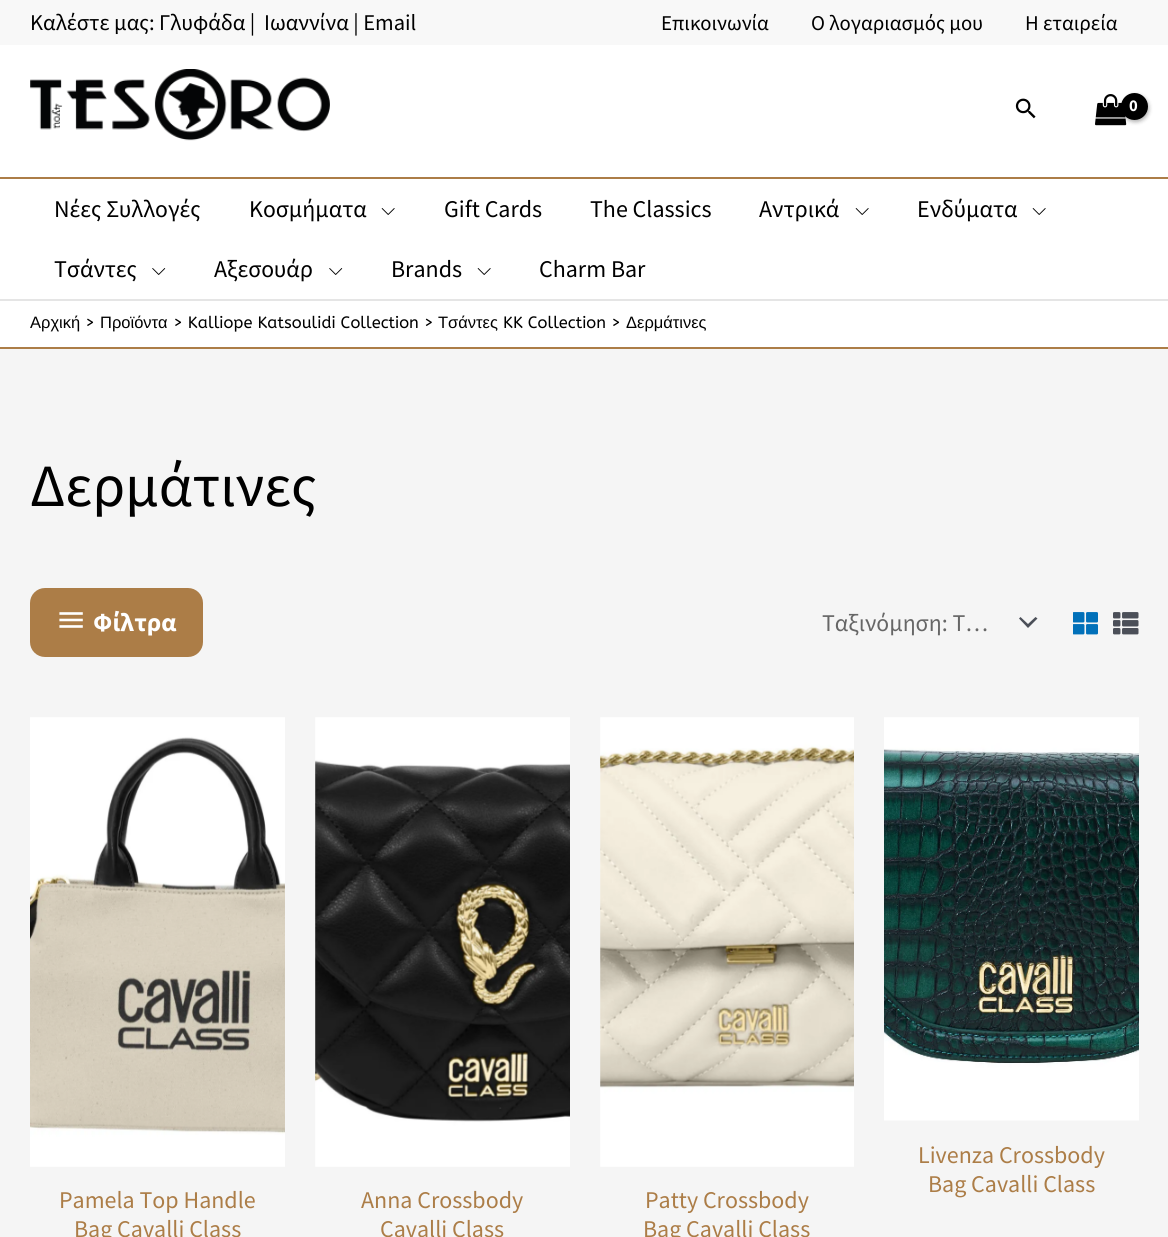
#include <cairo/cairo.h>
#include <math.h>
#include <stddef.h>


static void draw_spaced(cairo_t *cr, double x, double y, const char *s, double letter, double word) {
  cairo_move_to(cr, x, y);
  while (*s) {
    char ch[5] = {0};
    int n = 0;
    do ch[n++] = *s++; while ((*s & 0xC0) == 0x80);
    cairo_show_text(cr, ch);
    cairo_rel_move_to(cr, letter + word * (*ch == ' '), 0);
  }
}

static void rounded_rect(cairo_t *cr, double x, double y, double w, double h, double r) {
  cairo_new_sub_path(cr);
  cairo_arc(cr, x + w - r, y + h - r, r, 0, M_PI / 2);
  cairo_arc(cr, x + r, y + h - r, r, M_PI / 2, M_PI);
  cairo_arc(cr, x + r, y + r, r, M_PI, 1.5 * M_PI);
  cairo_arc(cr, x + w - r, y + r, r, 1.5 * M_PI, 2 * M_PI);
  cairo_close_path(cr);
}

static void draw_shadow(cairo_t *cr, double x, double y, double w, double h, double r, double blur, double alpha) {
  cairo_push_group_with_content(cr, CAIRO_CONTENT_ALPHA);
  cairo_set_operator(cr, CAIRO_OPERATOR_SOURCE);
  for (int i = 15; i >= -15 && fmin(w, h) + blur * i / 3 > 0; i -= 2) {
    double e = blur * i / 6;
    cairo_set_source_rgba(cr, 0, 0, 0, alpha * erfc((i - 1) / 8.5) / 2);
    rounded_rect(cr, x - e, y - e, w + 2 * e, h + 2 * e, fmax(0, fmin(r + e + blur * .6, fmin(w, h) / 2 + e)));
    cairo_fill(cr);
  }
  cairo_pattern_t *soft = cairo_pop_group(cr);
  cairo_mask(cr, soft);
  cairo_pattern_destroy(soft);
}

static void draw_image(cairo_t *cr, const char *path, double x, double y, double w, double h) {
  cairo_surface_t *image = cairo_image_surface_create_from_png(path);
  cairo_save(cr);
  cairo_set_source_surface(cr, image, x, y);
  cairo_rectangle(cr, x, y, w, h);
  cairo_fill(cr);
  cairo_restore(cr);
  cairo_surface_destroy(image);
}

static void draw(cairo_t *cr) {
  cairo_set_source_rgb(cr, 245 / 255.0, 245 / 255.0, 245 / 255.0);
  cairo_paint(cr);
  cairo_set_source_rgb(cr, 248 / 255.0, 248 / 255.0, 248 / 255.0);
  cairo_rectangle(cr, 0, 0, 1168, 45);
  cairo_fill(cr);
  cairo_set_source_rgb(cr, 1, 1, 1);
  cairo_rectangle(cr, 0, 45, 1168, 132);
  cairo_fill(cr);
  cairo_set_source_rgb(cr, 172 / 255.0, 125 / 255.0, 71 / 255.0);
  cairo_rectangle(cr, 0, 177, 1168, 2);
  cairo_fill(cr);
  draw_image(cr, "images/1.png", 30, 69, 300, 72);
  draw_image(cr, "images/2.png", 1015, 98, 21, 21);
  draw_image(cr, "images/3.png", 1095, 94, 32, 32);
  cairo_set_source_rgb(cr, 0, 0, 0);
  draw_shadow(cr, 1122, 95, 27, 27, 13.5, 2, 0.3);
  cairo_set_source_rgb(cr, 0, 0, 0);
  cairo_arc(cr, 1134.5, 106.5, 13.5, 0, 2 * M_PI);
  cairo_fill(cr);
  cairo_set_source_rgb(cr, 1, 1, 1);
  cairo_rectangle(cr, 0, 179, 1168, 120);
  cairo_fill(cr);
  cairo_set_source_rgb(cr, 229 / 255.0, 229 / 255.0, 229 / 255.0);
  cairo_rectangle(cr, 0, 299, 1168, 2);
  cairo_fill(cr);
  draw_image(cr, "images/4.png", 381, 208, 14, 7);
  draw_image(cr, "images/4.png", 855, 208, 14, 7);
  draw_image(cr, "images/4.png", 1032, 208, 14, 7);
  draw_image(cr, "images/5.png", 152, 268, 14, 7);
  draw_image(cr, "images/5.png", 329, 268, 14, 7);
  draw_image(cr, "images/4.png", 477, 268, 14, 7);
  cairo_set_source_rgb(cr, 1, 1, 1);
  cairo_rectangle(cr, 0, 301, 1168, 46);
  cairo_fill(cr);
  cairo_set_source_rgb(cr, 172 / 255.0, 125 / 255.0, 71 / 255.0);
  cairo_rectangle(cr, 0, 347, 1168, 2);
  cairo_fill(cr);
  rounded_rect(cr, 31, 589, 171, 67, 14);
  cairo_fill_preserve(cr);
  cairo_stroke(cr);
  draw_image(cr, "images/6.png", 59, 612, 24, 16);
  cairo_set_source_rgb(cr, 75 / 255.0, 79 / 255.0, 88 / 255.0);
  cairo_new_path(cr);
  cairo_move_to(cr, 1019, 618.5);
  cairo_line_to(cr, 1028, 628);
  cairo_line_to(cr, 1037.5, 618.5);
  cairo_line_to(cr, 1035.5, 617);
  cairo_line_to(cr, 1028, 624);
  cairo_line_to(cr, 1020.5, 617);
  cairo_close_path(cr);
  cairo_fill(cr);
  draw_image(cr, "images/7.png", 1073, 612, 25, 23);
  draw_image(cr, "images/8.png", 1113, 612, 26, 23);
  draw_image(cr, "images/9.png", 884, 717, 255, 404);
  draw_image(cr, "images/10.png", 30, 717, 255, 450);
  draw_image(cr, "images/11.png", 315, 717, 255, 450);
  draw_image(cr, "images/12.png", 600, 717, 254, 450);
  cairo_select_font_face(cr, "Source Sans Pro", CAIRO_FONT_SLANT_NORMAL, CAIRO_FONT_WEIGHT_NORMAL);
  cairo_set_font_size(cr, 22.5);
  cairo_set_source_rgb(cr, 0, 0, 0);
  cairo_move_to(cr, 30, 30);
  cairo_show_text(cr, "Καλέστε μας: Γλυφάδα |");
  cairo_move_to(cr, 264, 30);
  cairo_show_text(cr, "Ιωαννίνα | Email");
  cairo_set_font_size(cr, 21);
  cairo_move_to(cr, 661, 30);
  cairo_show_text(cr, "Επικοινωνία");
  cairo_move_to(cr, 811, 30);
  cairo_show_text(cr, "Ο λογαριασμός μου");
  cairo_move_to(cr, 1025, 30);
  cairo_show_text(cr, "Η εταιρεία");
  cairo_select_font_face(cr, "Source Sans Pro", CAIRO_FONT_SLANT_NORMAL, CAIRO_FONT_WEIGHT_BOLD);
  cairo_set_font_size(cr, 16.5);
  cairo_set_source_rgb(cr, 1, 1, 1);
  draw_spaced(cr, 1129, 111, "0", -1, 0);
  cairo_select_font_face(cr, "Source Sans Pro", CAIRO_FONT_SLANT_NORMAL, CAIRO_FONT_WEIGHT_NORMAL);
  cairo_set_font_size(cr, 24);
  cairo_set_source_rgb(cr, 0, 0, 0);
  cairo_move_to(cr, 54, 217);
  cairo_show_text(cr, "Νέες Συλλογές");
  cairo_move_to(cr, 249, 217);
  cairo_show_text(cr, "Κοσμήματα");
  cairo_move_to(cr, 444, 217);
  cairo_show_text(cr, "Gift Cards");
  cairo_move_to(cr, 590, 217);
  cairo_show_text(cr, "The Classics");
  cairo_move_to(cr, 759, 217);
  cairo_show_text(cr, "Αντρικά");
  cairo_move_to(cr, 917, 217);
  cairo_show_text(cr, "Ενδύματα");
  cairo_move_to(cr, 54, 277);
  cairo_show_text(cr, "Τσάντες");
  cairo_move_to(cr, 214, 277);
  cairo_show_text(cr, "Αξεσουάρ");
  cairo_move_to(cr, 391, 277);
  cairo_show_text(cr, "Brands");
  cairo_move_to(cr, 539, 277);
  cairo_show_text(cr, "Charm Bar");
  cairo_select_font_face(cr, "Liberation Sans", CAIRO_FONT_SLANT_NORMAL, CAIRO_FONT_WEIGHT_NORMAL);
  cairo_set_font_size(cr, 16.5);
  cairo_move_to(cr, 30, 328);
  cairo_show_text(cr, "Αρχική");
  cairo_select_font_face(cr, "ABeeZee", CAIRO_FONT_SLANT_NORMAL, CAIRO_FONT_WEIGHT_NORMAL);
  cairo_move_to(cr, 85, 328);
  cairo_show_text(cr, ">");
  cairo_select_font_face(cr, "Liberation Sans", CAIRO_FONT_SLANT_NORMAL, CAIRO_FONT_WEIGHT_NORMAL);
  cairo_move_to(cr, 100, 328);
  cairo_show_text(cr, "Προϊόντα");
  cairo_select_font_face(cr, "ABeeZee", CAIRO_FONT_SLANT_NORMAL, CAIRO_FONT_WEIGHT_NORMAL);
  cairo_move_to(cr, 173, 328);
  cairo_show_text(cr, "> Kalliope Katsoulidi Collection >");
  cairo_select_font_face(cr, "Liberation Sans", CAIRO_FONT_SLANT_NORMAL, CAIRO_FONT_WEIGHT_NORMAL);
  cairo_move_to(cr, 438, 328);
  cairo_show_text(cr, "Τσάντες");
  cairo_select_font_face(cr, "ABeeZee", CAIRO_FONT_SLANT_NORMAL, CAIRO_FONT_WEIGHT_NORMAL);
  cairo_move_to(cr, 503, 328);
  cairo_show_text(cr, "KK Collection >");
  cairo_select_font_face(cr, "Liberation Sans", CAIRO_FONT_SLANT_NORMAL, CAIRO_FONT_WEIGHT_NORMAL);
  cairo_move_to(cr, 626, 328);
  cairo_show_text(cr, "Δερμάτινες");
  cairo_select_font_face(cr, "Source Sans Pro", CAIRO_FONT_SLANT_NORMAL, CAIRO_FONT_WEIGHT_NORMAL);
  cairo_set_font_size(cr, 60);
  cairo_move_to(cr, 30, 506);
  cairo_show_text(cr, "Δερμάτινες");
  cairo_select_font_face(cr, "Source Sans Pro", CAIRO_FONT_SLANT_NORMAL, CAIRO_FONT_WEIGHT_BOLD);
  cairo_set_font_size(cr, 25.5);
  cairo_set_source_rgb(cr, 1, 1, 1);
  cairo_move_to(cr, 93, 631);
  cairo_show_text(cr, "Φίλτρα");
  cairo_select_font_face(cr, "Source Sans Pro", CAIRO_FONT_SLANT_NORMAL, CAIRO_FONT_WEIGHT_NORMAL);
  cairo_set_font_size(cr, 24);
  cairo_set_source_rgb(cr, 102 / 255.0, 102 / 255.0, 102 / 255.0);
  cairo_move_to(cr, 822, 631);
  cairo_show_text(cr, "Ταξινόμηση: Τ…");
  cairo_set_source_rgb(cr, 172 / 255.0, 125 / 255.0, 71 / 255.0);
  cairo_move_to(cr, 918, 1163);
  cairo_show_text(cr, "Livenza Crossbody");
  cairo_move_to(cr, 928, 1192);
  cairo_show_text(cr, "Bag Cavalli Class");
  cairo_move_to(cr, 59, 1208);
  cairo_show_text(cr, "Pamela Top Handle");
  cairo_move_to(cr, 74, 1237);
  cairo_show_text(cr, "Bag Cavalli Class");
  cairo_move_to(cr, 361, 1208);
  cairo_show_text(cr, "Anna Crossbody");
  cairo_move_to(cr, 380, 1237);
  cairo_show_text(cr, "Cavalli Class");
  cairo_move_to(cr, 645, 1208);
  cairo_show_text(cr, "Patty Crossbody");
  cairo_move_to(cr, 643, 1237);
  cairo_show_text(cr, "Bag Cavalli Class");
}

int main(void) {
  cairo_surface_t *surface = cairo_image_surface_create(CAIRO_FORMAT_RGB24, 1168, 1237);
  cairo_t *cr = cairo_create(surface);
  cairo_font_options_t *options = cairo_font_options_create();
  cairo_font_options_set_hint_metrics(options, CAIRO_HINT_METRICS_OFF);
  cairo_font_options_set_hint_style(options, CAIRO_HINT_STYLE_NONE);
  cairo_set_font_options(cr, options);
  cairo_set_miter_limit(cr, 4);
  draw(cr);
  cairo_surface_write_to_png(surface, "out.png");
  cairo_font_options_destroy(options);
  cairo_destroy(cr);
  cairo_surface_destroy(surface);
  return 0;
}
